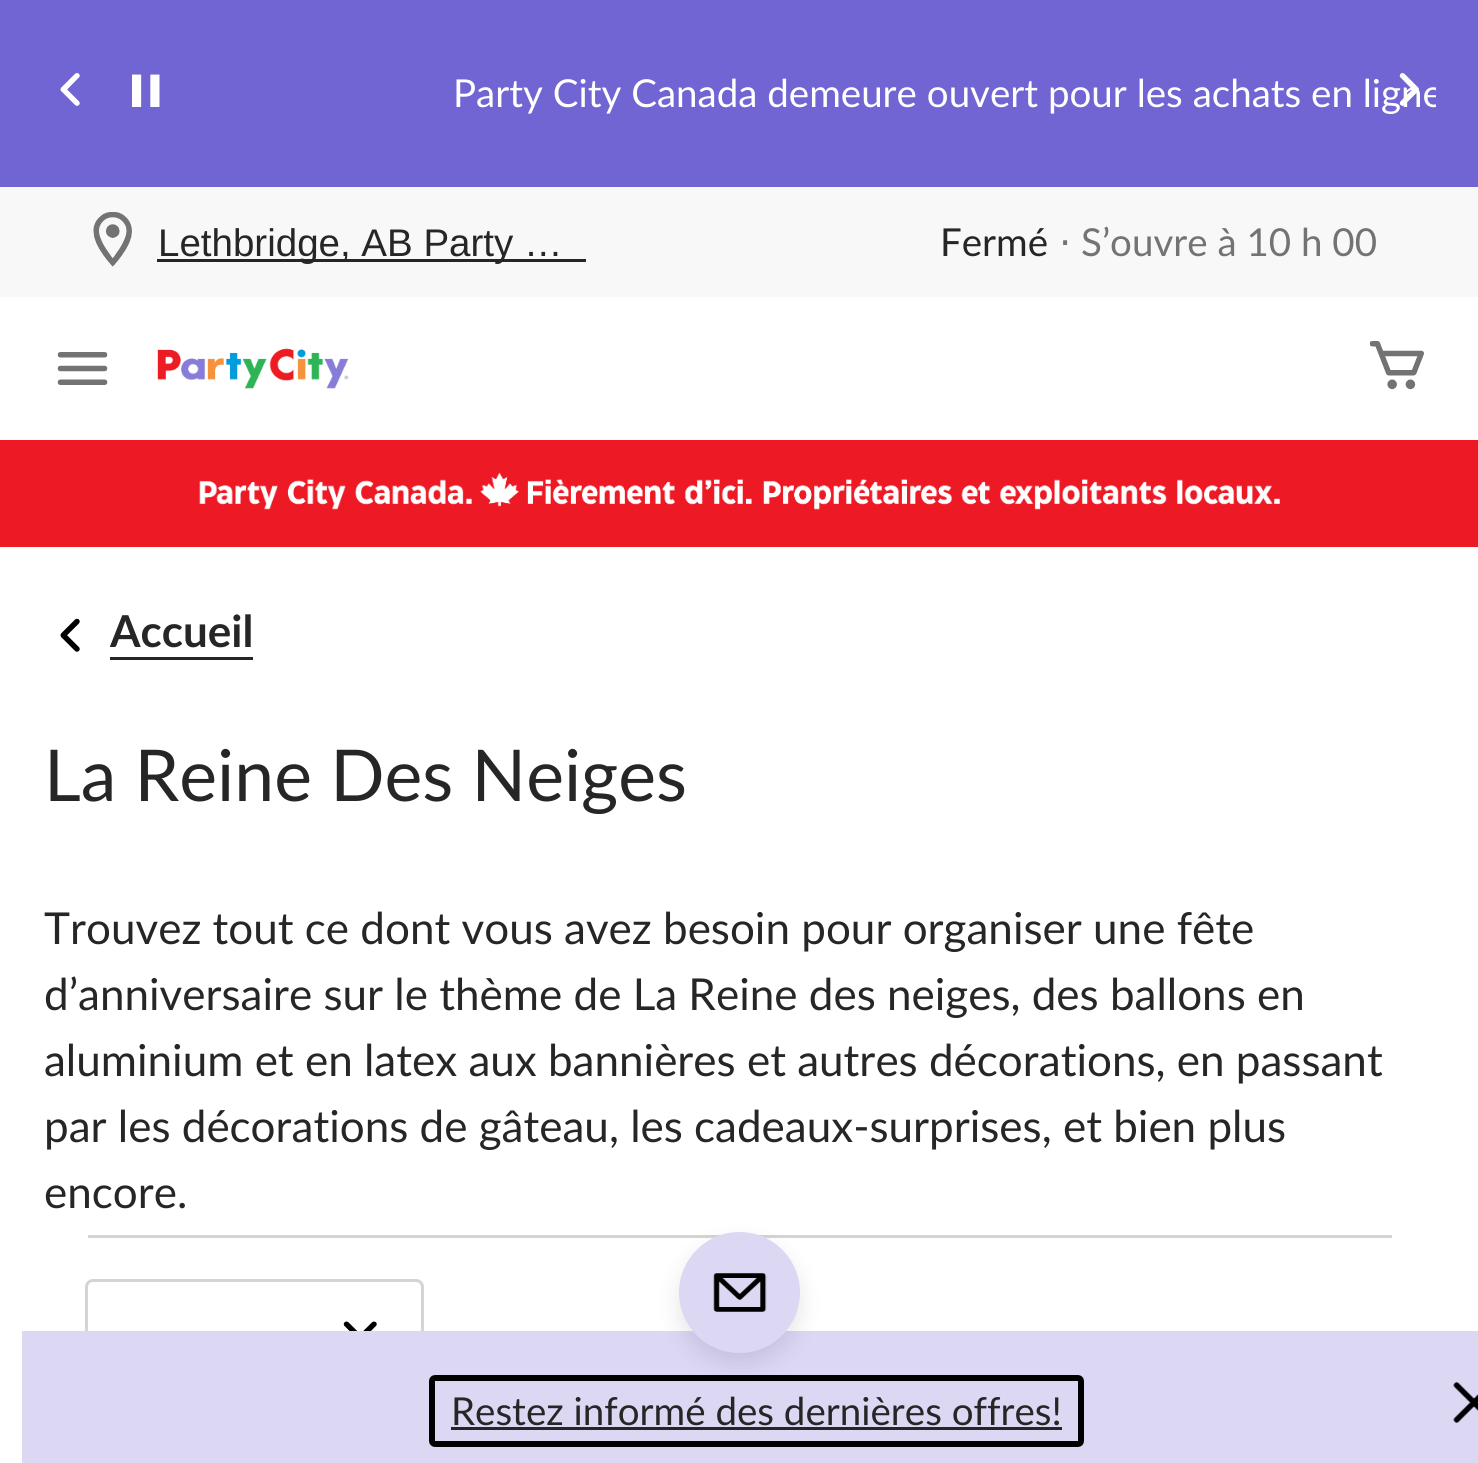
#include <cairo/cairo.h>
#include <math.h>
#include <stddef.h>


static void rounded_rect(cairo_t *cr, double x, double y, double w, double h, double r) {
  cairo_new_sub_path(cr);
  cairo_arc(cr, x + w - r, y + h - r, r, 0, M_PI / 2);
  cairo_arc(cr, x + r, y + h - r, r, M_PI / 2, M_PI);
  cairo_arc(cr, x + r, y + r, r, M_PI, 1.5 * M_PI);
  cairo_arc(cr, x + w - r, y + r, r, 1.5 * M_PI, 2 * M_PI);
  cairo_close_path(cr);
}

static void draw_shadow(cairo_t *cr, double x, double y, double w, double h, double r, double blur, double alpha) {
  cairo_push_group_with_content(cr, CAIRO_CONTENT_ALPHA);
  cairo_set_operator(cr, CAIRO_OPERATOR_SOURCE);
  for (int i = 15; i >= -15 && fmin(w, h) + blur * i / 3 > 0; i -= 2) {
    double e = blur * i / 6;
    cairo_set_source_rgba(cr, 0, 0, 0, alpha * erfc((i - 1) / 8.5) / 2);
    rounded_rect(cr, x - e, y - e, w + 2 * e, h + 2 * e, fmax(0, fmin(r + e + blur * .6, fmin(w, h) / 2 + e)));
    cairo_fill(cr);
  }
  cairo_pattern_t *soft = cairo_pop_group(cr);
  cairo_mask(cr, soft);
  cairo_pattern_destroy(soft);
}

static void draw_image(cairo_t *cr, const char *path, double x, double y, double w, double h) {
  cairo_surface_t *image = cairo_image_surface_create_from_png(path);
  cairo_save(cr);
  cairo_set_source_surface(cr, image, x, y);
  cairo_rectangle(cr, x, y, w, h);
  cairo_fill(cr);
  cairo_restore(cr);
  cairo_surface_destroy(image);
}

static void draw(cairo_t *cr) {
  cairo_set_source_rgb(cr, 1, 1, 1);
  cairo_paint(cr);
  cairo_set_source_rgb(cr, 113 / 255.0, 100 / 255.0, 211 / 255.0);
  cairo_rectangle(cr, 0, 0, 1478, 187);
  cairo_fill(cr);
  draw_image(cr, "images/1.png", 60, 73, 20, 33);
  draw_image(cr, "images/2.png", 132, 74, 28, 33);
  cairo_set_source_rgb(cr, 248 / 255.0, 248 / 255.0, 248 / 255.0);
  cairo_rectangle(cr, 0, 187, 1478, 110);
  cairo_fill(cr);
  draw_image(cr, "images/4.png", 93, 212, 39, 55);
  cairo_set_source_rgb(cr, 38 / 255.0, 38 / 255.0, 38 / 255.0);
  cairo_rectangle(cr, 157, 259, 429, 3);
  cairo_fill(cr);
  draw_image(cr, "images/5.png", 57, 352, 51, 33);
  draw_image(cr, "images/6.png", 157, 348, 192, 41);
  draw_image(cr, "images/7.png", 1369, 341, 55, 49);
  cairo_set_source_rgb(cr, 237 / 255.0, 26 / 255.0, 37 / 255.0);
  cairo_rectangle(cr, 0, 440, 1478, 107);
  cairo_fill(cr);
  draw_image(cr, "images/8.png", 199, 472, 1081, 38);
  draw_image(cr, "images/9.png", 60, 618, 20, 34);
  cairo_set_source_rgb(cr, 38 / 255.0, 38 / 255.0, 38 / 255.0);
  cairo_rectangle(cr, 110, 657, 143, 3);
  cairo_fill(cr);
  cairo_set_source_rgb(cr, 212 / 255.0, 212 / 255.0, 212 / 255.0);
  cairo_rectangle(cr, 88, 1235, 1304, 3);
  cairo_fill(cr);
  rounded_rect(cr, 86.5, 1280.5, 336, 101, 6.5);
  cairo_set_line_width(cr, 3);
  cairo_stroke(cr);
  draw_image(cr, "images/10.png", 343, 1321, 34, 10);
  cairo_set_source_rgb(cr, 220 / 255.0, 216 / 255.0, 244 / 255.0);
  cairo_rectangle(cr, 22, 1331, 1456, 132);
  cairo_fill(cr);
  rounded_rect(cr, 432, 1378, 649, 66, 3);
  cairo_set_source_rgb(cr, 0, 0, 0);
  cairo_set_line_width(cr, 6);
  cairo_stroke(cr);
  cairo_set_source_rgb(cr, 0, 0, 26 / 255.0);
  draw_shadow(cr, 679, 1243, 121, 121, 60.5, 11, 0.1);
  cairo_set_source_rgb(cr, 220 / 255.0, 216 / 255.0, 244 / 255.0);
  cairo_arc(cr, 739.5, 1292.5, 60.5, 0, 2 * M_PI);
  cairo_fill(cr);
  draw_image(cr, "images/11.png", 713, 1273, 54, 39);
  cairo_set_source_rgb(cr, 38 / 255.0, 38 / 255.0, 38 / 255.0);
  cairo_rectangle(cr, 451, 1427, 611, 3);
  cairo_fill(cr);
  draw_image(cr, "images/12.png", 1453, 1382, 25, 41);
  cairo_save(cr);
  cairo_rectangle(cr, 44, 28, 1392, 132);
  cairo_clip(cr);
  cairo_select_font_face(cr, "Lato", CAIRO_FONT_SLANT_NORMAL, CAIRO_FONT_WEIGHT_NORMAL);
  cairo_set_font_size(cr, 38.5);
  cairo_set_source_rgb(cr, 1, 1, 1);
  cairo_move_to(cr, 453, 107);
  cairo_show_text(cr, "Party City Canada demeure ouvert pour les achats en ligne");
  cairo_restore(cr);
  draw_image(cr, "images/3.png", 1399, 73, 20, 33);
  cairo_select_font_face(cr, "Liberation Sans", CAIRO_FONT_SLANT_NORMAL, CAIRO_FONT_WEIGHT_NORMAL);
  cairo_set_font_size(cr, 38.5);
  cairo_move_to(cr, 158, 256);
  cairo_show_text(cr, "Lethbridge, AB Party …");
  cairo_select_font_face(cr, "Lato", CAIRO_FONT_SLANT_NORMAL, CAIRO_FONT_WEIGHT_NORMAL);
  cairo_move_to(cr, 940, 256);
  cairo_show_text(cr, "Fermé");
  cairo_select_font_face(cr, "DejaVu Sans", CAIRO_FONT_SLANT_NORMAL, CAIRO_FONT_WEIGHT_NORMAL);
  cairo_set_source_rgb(cr, 115 / 255.0, 115 / 255.0, 115 / 255.0);
  cairo_move_to(cr, 1059, 256);
  cairo_show_text(cr, "⋅");
  cairo_select_font_face(cr, "Lato", CAIRO_FONT_SLANT_NORMAL, CAIRO_FONT_WEIGHT_NORMAL);
  cairo_move_to(cr, 1081, 256);
  cairo_show_text(cr, "S’ouvre à 10 h 00");
  cairo_select_font_face(cr, "Lato", CAIRO_FONT_SLANT_NORMAL, CAIRO_FONT_WEIGHT_BOLD);
  cairo_set_font_size(cr, 44);
  cairo_set_source_rgb(cr, 38 / 255.0, 38 / 255.0, 38 / 255.0);
  cairo_move_to(cr, 110, 647);
  cairo_show_text(cr, "Accueil");
  cairo_select_font_face(cr, "Lato", CAIRO_FONT_SLANT_NORMAL, CAIRO_FONT_WEIGHT_NORMAL);
  cairo_set_font_size(cr, 71.5);
  cairo_move_to(cr, 44, 801);
  cairo_show_text(cr, "La Reine Des Neiges");
  cairo_set_font_size(cr, 44);
  cairo_move_to(cr, 44, 944);
  cairo_show_text(cr, "Trouvez tout ce dont vous avez besoin pour organiser une fête");
  cairo_move_to(cr, 44, 1010);
  cairo_show_text(cr, "d’anniversaire sur le thème de La Reine des neiges, des ballons en");
  cairo_move_to(cr, 44, 1076);
  cairo_show_text(cr, "aluminium et en latex aux bannières et autres décorations, en passant");
  cairo_move_to(cr, 44, 1142);
  cairo_show_text(cr, "par les décorations de gâteau, les cadeaux-surprises, et bien plus");
  cairo_move_to(cr, 44, 1208);
  cairo_show_text(cr, "encore.");
  cairo_set_font_size(cr, 38.5);
  cairo_move_to(cr, 451, 1425);
  cairo_show_text(cr, "Restez informé des dernières offres!");
}

int main(void) {
  cairo_surface_t *surface = cairo_image_surface_create(CAIRO_FORMAT_RGB24, 1478, 1463);
  cairo_t *cr = cairo_create(surface);
  cairo_font_options_t *options = cairo_font_options_create();
  cairo_font_options_set_hint_metrics(options, CAIRO_HINT_METRICS_OFF);
  cairo_font_options_set_hint_style(options, CAIRO_HINT_STYLE_NONE);
  cairo_set_font_options(cr, options);
  cairo_set_miter_limit(cr, 4);
  draw(cr);
  cairo_surface_write_to_png(surface, "out.png");
  cairo_font_options_destroy(options);
  cairo_destroy(cr);
  cairo_surface_destroy(surface);
  return 0;
}
